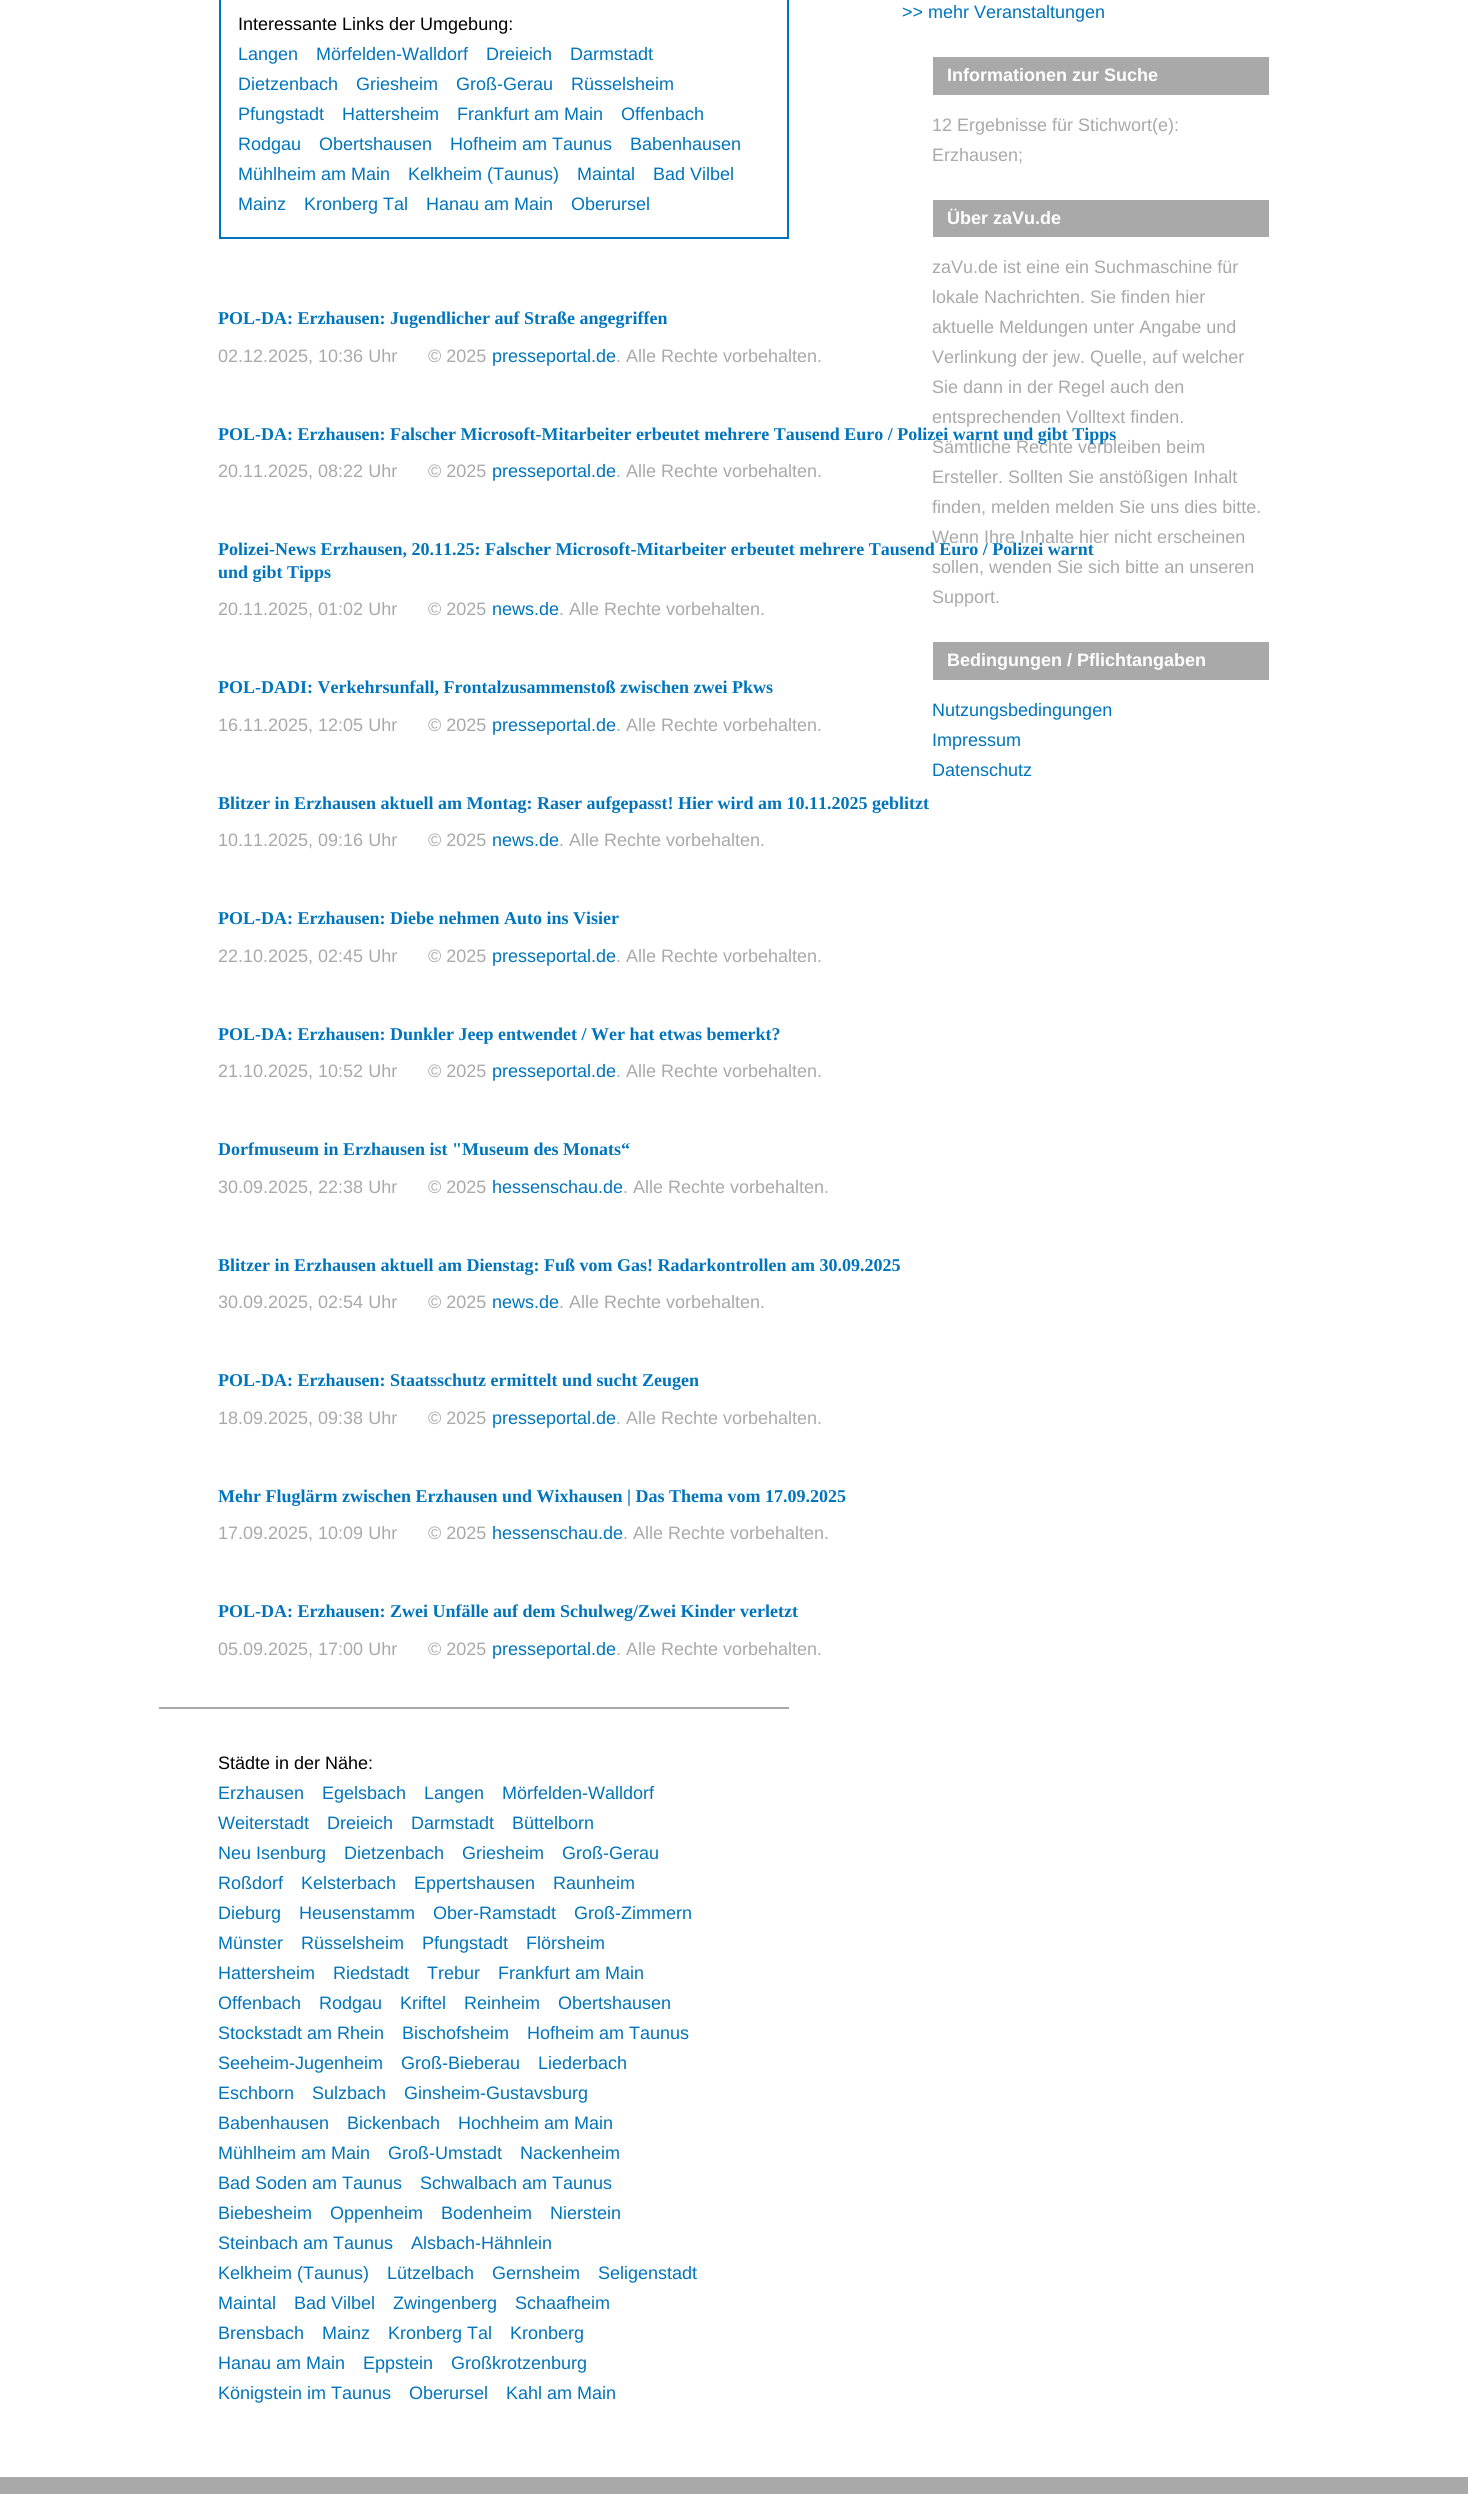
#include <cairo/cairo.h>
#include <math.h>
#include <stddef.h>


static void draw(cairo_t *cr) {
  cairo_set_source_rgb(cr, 1, 1, 1);
  cairo_paint(cr);
  cairo_set_source_rgb(cr, 169 / 255.0, 169 / 255.0, 169 / 255.0);
  cairo_rectangle(cr, 933, 57, 336, 38);
  cairo_fill(cr);
  cairo_rectangle(cr, 933, 200, 336, 37);
  cairo_fill(cr);
  cairo_rectangle(cr, 933, 642, 336, 38);
  cairo_fill(cr);
  cairo_rectangle(cr, 220, -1, 568, 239);
  cairo_set_source_rgb(cr, 0, 116 / 255.0, 188 / 255.0);
  cairo_stroke(cr);
  cairo_set_source_rgb(cr, 169 / 255.0, 169 / 255.0, 169 / 255.0);
  cairo_rectangle(cr, 159, 1707, 630, 2);
  cairo_fill(cr);
  cairo_rectangle(cr, 0, 2477, 1468, 17);
  cairo_fill(cr);
  cairo_select_font_face(cr, "Liberation Sans", CAIRO_FONT_SLANT_NORMAL, CAIRO_FONT_WEIGHT_NORMAL);
  cairo_set_font_size(cr, 18);
  cairo_set_source_rgb(cr, 0, 116 / 255.0, 188 / 255.0);
  cairo_move_to(cr, 902, 18);
  cairo_show_text(cr, ">> mehr Veranstaltungen");
  cairo_select_font_face(cr, "Liberation Sans", CAIRO_FONT_SLANT_NORMAL, CAIRO_FONT_WEIGHT_BOLD);
  cairo_set_source_rgb(cr, 1, 1, 1);
  cairo_move_to(cr, 947, 81);
  cairo_show_text(cr, "Informationen zur Suche");
  cairo_select_font_face(cr, "Liberation Sans", CAIRO_FONT_SLANT_NORMAL, CAIRO_FONT_WEIGHT_NORMAL);
  cairo_set_source_rgb(cr, 169 / 255.0, 169 / 255.0, 169 / 255.0);
  cairo_move_to(cr, 932, 131);
  cairo_show_text(cr, "12 Ergebnisse für Stichwort(e):");
  cairo_move_to(cr, 932, 161);
  cairo_show_text(cr, "Erzhausen;");
  cairo_select_font_face(cr, "Liberation Sans", CAIRO_FONT_SLANT_NORMAL, CAIRO_FONT_WEIGHT_BOLD);
  cairo_set_source_rgb(cr, 1, 1, 1);
  cairo_move_to(cr, 947, 224);
  cairo_show_text(cr, "Über zaVu.de");
  cairo_select_font_face(cr, "Liberation Sans", CAIRO_FONT_SLANT_NORMAL, CAIRO_FONT_WEIGHT_NORMAL);
  cairo_set_source_rgb(cr, 169 / 255.0, 169 / 255.0, 169 / 255.0);
  cairo_move_to(cr, 932, 273);
  cairo_show_text(cr, "zaVu.de ist eine ein Suchmaschine für");
  cairo_move_to(cr, 932, 303);
  cairo_show_text(cr, "lokale Nachrichten. Sie finden hier");
  cairo_move_to(cr, 932, 333);
  cairo_show_text(cr, "aktuelle Meldungen unter Angabe und");
  cairo_move_to(cr, 932, 363);
  cairo_show_text(cr, "Verlinkung der jew. Quelle, auf welcher");
  cairo_move_to(cr, 932, 393);
  cairo_show_text(cr, "Sie dann in der Regel auch den");
  cairo_move_to(cr, 932, 423);
  cairo_show_text(cr, "entsprechenden Volltext finden.");
  cairo_move_to(cr, 932, 453);
  cairo_show_text(cr, "Sämtliche Rechte verbleiben beim");
  cairo_move_to(cr, 932, 483);
  cairo_show_text(cr, "Ersteller. Sollten Sie anstößigen Inhalt");
  cairo_move_to(cr, 932, 513);
  cairo_show_text(cr, "finden, melden melden Sie uns dies bitte.");
  cairo_move_to(cr, 932, 543);
  cairo_show_text(cr, "Wenn Ihre Inhalte hier nicht erscheinen");
  cairo_move_to(cr, 932, 573);
  cairo_show_text(cr, "sollen, wenden Sie sich bitte an unseren");
  cairo_move_to(cr, 932, 603);
  cairo_show_text(cr, "Support.");
  cairo_select_font_face(cr, "Liberation Sans", CAIRO_FONT_SLANT_NORMAL, CAIRO_FONT_WEIGHT_BOLD);
  cairo_set_source_rgb(cr, 1, 1, 1);
  cairo_move_to(cr, 947, 666);
  cairo_show_text(cr, "Bedingungen / Pflichtangaben");
  cairo_select_font_face(cr, "Liberation Sans", CAIRO_FONT_SLANT_NORMAL, CAIRO_FONT_WEIGHT_NORMAL);
  cairo_set_source_rgb(cr, 0, 116 / 255.0, 188 / 255.0);
  cairo_move_to(cr, 932, 716);
  cairo_show_text(cr, "Nutzungsbedingungen");
  cairo_move_to(cr, 932, 746);
  cairo_show_text(cr, "Impressum");
  cairo_move_to(cr, 932, 776);
  cairo_show_text(cr, "Datenschutz");
  cairo_set_source_rgb(cr, 0, 0, 0);
  cairo_move_to(cr, 238, 30);
  cairo_show_text(cr, "Interessante Links der Umgebung:");
  cairo_set_source_rgb(cr, 0, 116 / 255.0, 188 / 255.0);
  cairo_move_to(cr, 238, 60);
  cairo_show_text(cr, "Langen");
  cairo_move_to(cr, 316, 60);
  cairo_show_text(cr, "Mörfelden-Walldorf");
  cairo_move_to(cr, 486, 60);
  cairo_show_text(cr, "Dreieich");
  cairo_move_to(cr, 570, 60);
  cairo_show_text(cr, "Darmstadt");
  cairo_move_to(cr, 238, 90);
  cairo_show_text(cr, "Dietzenbach");
  cairo_move_to(cr, 356, 90);
  cairo_show_text(cr, "Griesheim");
  cairo_move_to(cr, 456, 90);
  cairo_show_text(cr, "Groß-Gerau");
  cairo_move_to(cr, 571, 90);
  cairo_show_text(cr, "Rüsselsheim");
  cairo_move_to(cr, 238, 120);
  cairo_show_text(cr, "Pfungstadt");
  cairo_move_to(cr, 342, 120);
  cairo_show_text(cr, "Hattersheim");
  cairo_move_to(cr, 457, 120);
  cairo_show_text(cr, "Frankfurt am Main");
  cairo_move_to(cr, 621, 120);
  cairo_show_text(cr, "Offenbach");
  cairo_move_to(cr, 238, 150);
  cairo_show_text(cr, "Rodgau");
  cairo_move_to(cr, 319, 150);
  cairo_show_text(cr, "Obertshausen");
  cairo_move_to(cr, 450, 150);
  cairo_show_text(cr, "Hofheim am Taunus");
  cairo_move_to(cr, 630, 150);
  cairo_show_text(cr, "Babenhausen");
  cairo_move_to(cr, 238, 180);
  cairo_show_text(cr, "Mühlheim am Main");
  cairo_move_to(cr, 408, 180);
  cairo_show_text(cr, "Kelkheim (Taunus)");
  cairo_move_to(cr, 577, 180);
  cairo_show_text(cr, "Maintal");
  cairo_move_to(cr, 653, 180);
  cairo_show_text(cr, "Bad Vilbel");
  cairo_move_to(cr, 238, 210);
  cairo_show_text(cr, "Mainz");
  cairo_move_to(cr, 304, 210);
  cairo_show_text(cr, "Kronberg Tal");
  cairo_move_to(cr, 426, 210);
  cairo_show_text(cr, "Hanau am Main");
  cairo_move_to(cr, 571, 210);
  cairo_show_text(cr, "Oberursel");
  cairo_select_font_face(cr, "Liberation Serif", CAIRO_FONT_SLANT_NORMAL, CAIRO_FONT_WEIGHT_BOLD);
  cairo_move_to(cr, 218, 324);
  cairo_show_text(cr, "POL-DA: Erzhausen: Jugendlicher auf Straße angegriffen");
  cairo_select_font_face(cr, "Liberation Sans", CAIRO_FONT_SLANT_NORMAL, CAIRO_FONT_WEIGHT_NORMAL);
  cairo_set_source_rgb(cr, 169 / 255.0, 169 / 255.0, 169 / 255.0);
  cairo_move_to(cr, 218, 362);
  cairo_show_text(cr, "02.12.2025, 10:36 Uhr");
  cairo_move_to(cr, 428, 362);
  cairo_show_text(cr, "© 2025");
  cairo_set_source_rgb(cr, 0, 116 / 255.0, 188 / 255.0);
  cairo_move_to(cr, 492, 362);
  cairo_show_text(cr, "presseportal.de");
  cairo_set_source_rgb(cr, 169 / 255.0, 169 / 255.0, 169 / 255.0);
  cairo_move_to(cr, 616, 362);
  cairo_show_text(cr, ". Alle Rechte vorbehalten.");
  cairo_select_font_face(cr, "Liberation Serif", CAIRO_FONT_SLANT_NORMAL, CAIRO_FONT_WEIGHT_BOLD);
  cairo_set_source_rgb(cr, 0, 116 / 255.0, 188 / 255.0);
  cairo_move_to(cr, 218, 440);
  cairo_show_text(cr, "POL-DA: Erzhausen: Falscher Microsoft-Mitarbeiter erbeutet mehrere Tausend Euro / Polizei warnt und gibt Tipps");
  cairo_select_font_face(cr, "Liberation Sans", CAIRO_FONT_SLANT_NORMAL, CAIRO_FONT_WEIGHT_NORMAL);
  cairo_set_source_rgb(cr, 169 / 255.0, 169 / 255.0, 169 / 255.0);
  cairo_move_to(cr, 218, 477);
  cairo_show_text(cr, "20.11.2025, 08:22 Uhr");
  cairo_move_to(cr, 428, 477);
  cairo_show_text(cr, "© 2025");
  cairo_set_source_rgb(cr, 0, 116 / 255.0, 188 / 255.0);
  cairo_move_to(cr, 492, 477);
  cairo_show_text(cr, "presseportal.de");
  cairo_set_source_rgb(cr, 169 / 255.0, 169 / 255.0, 169 / 255.0);
  cairo_move_to(cr, 616, 477);
  cairo_show_text(cr, ". Alle Rechte vorbehalten.");
  cairo_select_font_face(cr, "Liberation Serif", CAIRO_FONT_SLANT_NORMAL, CAIRO_FONT_WEIGHT_BOLD);
  cairo_set_source_rgb(cr, 0, 116 / 255.0, 188 / 255.0);
  cairo_move_to(cr, 218, 555);
  cairo_show_text(cr, "Polizei-News Erzhausen, 20.11.25: Falscher Microsoft-Mitarbeiter erbeutet mehrere Tausend Euro / Polizei warnt");
  cairo_move_to(cr, 218, 578);
  cairo_show_text(cr, "und gibt Tipps");
  cairo_select_font_face(cr, "Liberation Sans", CAIRO_FONT_SLANT_NORMAL, CAIRO_FONT_WEIGHT_NORMAL);
  cairo_set_source_rgb(cr, 169 / 255.0, 169 / 255.0, 169 / 255.0);
  cairo_move_to(cr, 218, 615);
  cairo_show_text(cr, "20.11.2025, 01:02 Uhr");
  cairo_move_to(cr, 428, 615);
  cairo_show_text(cr, "© 2025");
  cairo_set_source_rgb(cr, 0, 116 / 255.0, 188 / 255.0);
  cairo_move_to(cr, 492, 615);
  cairo_show_text(cr, "news.de");
  cairo_set_source_rgb(cr, 169 / 255.0, 169 / 255.0, 169 / 255.0);
  cairo_move_to(cr, 559, 615);
  cairo_show_text(cr, ". Alle Rechte vorbehalten.");
  cairo_select_font_face(cr, "Liberation Serif", CAIRO_FONT_SLANT_NORMAL, CAIRO_FONT_WEIGHT_BOLD);
  cairo_set_source_rgb(cr, 0, 116 / 255.0, 188 / 255.0);
  cairo_move_to(cr, 218, 693);
  cairo_show_text(cr, "POL-DADI: Verkehrsunfall, Frontalzusammenstoß zwischen zwei Pkws");
  cairo_select_font_face(cr, "Liberation Sans", CAIRO_FONT_SLANT_NORMAL, CAIRO_FONT_WEIGHT_NORMAL);
  cairo_set_source_rgb(cr, 169 / 255.0, 169 / 255.0, 169 / 255.0);
  cairo_move_to(cr, 218, 731);
  cairo_show_text(cr, "16.11.2025, 12:05 Uhr");
  cairo_move_to(cr, 428, 731);
  cairo_show_text(cr, "© 2025");
  cairo_set_source_rgb(cr, 0, 116 / 255.0, 188 / 255.0);
  cairo_move_to(cr, 492, 731);
  cairo_show_text(cr, "presseportal.de");
  cairo_set_source_rgb(cr, 169 / 255.0, 169 / 255.0, 169 / 255.0);
  cairo_move_to(cr, 616, 731);
  cairo_show_text(cr, ". Alle Rechte vorbehalten.");
  cairo_select_font_face(cr, "Liberation Serif", CAIRO_FONT_SLANT_NORMAL, CAIRO_FONT_WEIGHT_BOLD);
  cairo_set_source_rgb(cr, 0, 116 / 255.0, 188 / 255.0);
  cairo_move_to(cr, 218, 809);
  cairo_show_text(cr, "Blitzer in Erzhausen aktuell am Montag: Raser aufgepasst! Hier wird am 10.11.2025 geblitzt");
  cairo_select_font_face(cr, "Liberation Sans", CAIRO_FONT_SLANT_NORMAL, CAIRO_FONT_WEIGHT_NORMAL);
  cairo_set_source_rgb(cr, 169 / 255.0, 169 / 255.0, 169 / 255.0);
  cairo_move_to(cr, 218, 846);
  cairo_show_text(cr, "10.11.2025, 09:16 Uhr");
  cairo_move_to(cr, 428, 846);
  cairo_show_text(cr, "© 2025");
  cairo_set_source_rgb(cr, 0, 116 / 255.0, 188 / 255.0);
  cairo_move_to(cr, 492, 846);
  cairo_show_text(cr, "news.de");
  cairo_set_source_rgb(cr, 169 / 255.0, 169 / 255.0, 169 / 255.0);
  cairo_move_to(cr, 559, 846);
  cairo_show_text(cr, ". Alle Rechte vorbehalten.");
  cairo_select_font_face(cr, "Liberation Serif", CAIRO_FONT_SLANT_NORMAL, CAIRO_FONT_WEIGHT_BOLD);
  cairo_set_source_rgb(cr, 0, 116 / 255.0, 188 / 255.0);
  cairo_move_to(cr, 218, 924);
  cairo_show_text(cr, "POL-DA: Erzhausen: Diebe nehmen Auto ins Visier");
  cairo_select_font_face(cr, "Liberation Sans", CAIRO_FONT_SLANT_NORMAL, CAIRO_FONT_WEIGHT_NORMAL);
  cairo_set_source_rgb(cr, 169 / 255.0, 169 / 255.0, 169 / 255.0);
  cairo_move_to(cr, 218, 962);
  cairo_show_text(cr, "22.10.2025, 02:45 Uhr");
  cairo_move_to(cr, 428, 962);
  cairo_show_text(cr, "© 2025");
  cairo_set_source_rgb(cr, 0, 116 / 255.0, 188 / 255.0);
  cairo_move_to(cr, 492, 962);
  cairo_show_text(cr, "presseportal.de");
  cairo_set_source_rgb(cr, 169 / 255.0, 169 / 255.0, 169 / 255.0);
  cairo_move_to(cr, 616, 962);
  cairo_show_text(cr, ". Alle Rechte vorbehalten.");
  cairo_select_font_face(cr, "Liberation Serif", CAIRO_FONT_SLANT_NORMAL, CAIRO_FONT_WEIGHT_BOLD);
  cairo_set_source_rgb(cr, 0, 116 / 255.0, 188 / 255.0);
  cairo_move_to(cr, 218, 1040);
  cairo_show_text(cr, "POL-DA: Erzhausen: Dunkler Jeep entwendet / Wer hat etwas bemerkt?");
  cairo_select_font_face(cr, "Liberation Sans", CAIRO_FONT_SLANT_NORMAL, CAIRO_FONT_WEIGHT_NORMAL);
  cairo_set_source_rgb(cr, 169 / 255.0, 169 / 255.0, 169 / 255.0);
  cairo_move_to(cr, 218, 1077);
  cairo_show_text(cr, "21.10.2025, 10:52 Uhr");
  cairo_move_to(cr, 428, 1077);
  cairo_show_text(cr, "© 2025");
  cairo_set_source_rgb(cr, 0, 116 / 255.0, 188 / 255.0);
  cairo_move_to(cr, 492, 1077);
  cairo_show_text(cr, "presseportal.de");
  cairo_set_source_rgb(cr, 169 / 255.0, 169 / 255.0, 169 / 255.0);
  cairo_move_to(cr, 616, 1077);
  cairo_show_text(cr, ". Alle Rechte vorbehalten.");
  cairo_select_font_face(cr, "Liberation Serif", CAIRO_FONT_SLANT_NORMAL, CAIRO_FONT_WEIGHT_BOLD);
  cairo_set_source_rgb(cr, 0, 116 / 255.0, 188 / 255.0);
  cairo_move_to(cr, 218, 1155);
  cairo_show_text(cr, "Dorfmuseum in Erzhausen ist \"Museum des Monats“");
  cairo_select_font_face(cr, "Liberation Sans", CAIRO_FONT_SLANT_NORMAL, CAIRO_FONT_WEIGHT_NORMAL);
  cairo_set_source_rgb(cr, 169 / 255.0, 169 / 255.0, 169 / 255.0);
  cairo_move_to(cr, 218, 1193);
  cairo_show_text(cr, "30.09.2025, 22:38 Uhr");
  cairo_move_to(cr, 428, 1193);
  cairo_show_text(cr, "© 2025");
  cairo_set_source_rgb(cr, 0, 116 / 255.0, 188 / 255.0);
  cairo_move_to(cr, 492, 1193);
  cairo_show_text(cr, "hessenschau.de");
  cairo_set_source_rgb(cr, 169 / 255.0, 169 / 255.0, 169 / 255.0);
  cairo_move_to(cr, 623, 1193);
  cairo_show_text(cr, ". Alle Rechte vorbehalten.");
  cairo_select_font_face(cr, "Liberation Serif", CAIRO_FONT_SLANT_NORMAL, CAIRO_FONT_WEIGHT_BOLD);
  cairo_set_source_rgb(cr, 0, 116 / 255.0, 188 / 255.0);
  cairo_move_to(cr, 218, 1271);
  cairo_show_text(cr, "Blitzer in Erzhausen aktuell am Dienstag: Fuß vom Gas! Radarkontrollen am 30.09.2025");
  cairo_select_font_face(cr, "Liberation Sans", CAIRO_FONT_SLANT_NORMAL, CAIRO_FONT_WEIGHT_NORMAL);
  cairo_set_source_rgb(cr, 169 / 255.0, 169 / 255.0, 169 / 255.0);
  cairo_move_to(cr, 218, 1308);
  cairo_show_text(cr, "30.09.2025, 02:54 Uhr");
  cairo_move_to(cr, 428, 1308);
  cairo_show_text(cr, "© 2025");
  cairo_set_source_rgb(cr, 0, 116 / 255.0, 188 / 255.0);
  cairo_move_to(cr, 492, 1308);
  cairo_show_text(cr, "news.de");
  cairo_set_source_rgb(cr, 169 / 255.0, 169 / 255.0, 169 / 255.0);
  cairo_move_to(cr, 559, 1308);
  cairo_show_text(cr, ". Alle Rechte vorbehalten.");
  cairo_select_font_face(cr, "Liberation Serif", CAIRO_FONT_SLANT_NORMAL, CAIRO_FONT_WEIGHT_BOLD);
  cairo_set_source_rgb(cr, 0, 116 / 255.0, 188 / 255.0);
  cairo_move_to(cr, 218, 1386);
  cairo_show_text(cr, "POL-DA: Erzhausen: Staatsschutz ermittelt und sucht Zeugen");
  cairo_select_font_face(cr, "Liberation Sans", CAIRO_FONT_SLANT_NORMAL, CAIRO_FONT_WEIGHT_NORMAL);
  cairo_set_source_rgb(cr, 169 / 255.0, 169 / 255.0, 169 / 255.0);
  cairo_move_to(cr, 218, 1424);
  cairo_show_text(cr, "18.09.2025, 09:38 Uhr");
  cairo_move_to(cr, 428, 1424);
  cairo_show_text(cr, "© 2025");
  cairo_set_source_rgb(cr, 0, 116 / 255.0, 188 / 255.0);
  cairo_move_to(cr, 492, 1424);
  cairo_show_text(cr, "presseportal.de");
  cairo_set_source_rgb(cr, 169 / 255.0, 169 / 255.0, 169 / 255.0);
  cairo_move_to(cr, 616, 1424);
  cairo_show_text(cr, ". Alle Rechte vorbehalten.");
  cairo_select_font_face(cr, "Liberation Serif", CAIRO_FONT_SLANT_NORMAL, CAIRO_FONT_WEIGHT_BOLD);
  cairo_set_source_rgb(cr, 0, 116 / 255.0, 188 / 255.0);
  cairo_move_to(cr, 218, 1502);
  cairo_show_text(cr, "Mehr Fluglärm zwischen Erzhausen und Wixhausen | Das Thema vom 17.09.2025");
  cairo_select_font_face(cr, "Liberation Sans", CAIRO_FONT_SLANT_NORMAL, CAIRO_FONT_WEIGHT_NORMAL);
  cairo_set_source_rgb(cr, 169 / 255.0, 169 / 255.0, 169 / 255.0);
  cairo_move_to(cr, 218, 1539);
  cairo_show_text(cr, "17.09.2025, 10:09 Uhr");
  cairo_move_to(cr, 428, 1539);
  cairo_show_text(cr, "© 2025");
  cairo_set_source_rgb(cr, 0, 116 / 255.0, 188 / 255.0);
  cairo_move_to(cr, 492, 1539);
  cairo_show_text(cr, "hessenschau.de");
  cairo_set_source_rgb(cr, 169 / 255.0, 169 / 255.0, 169 / 255.0);
  cairo_move_to(cr, 623, 1539);
  cairo_show_text(cr, ". Alle Rechte vorbehalten.");
  cairo_select_font_face(cr, "Liberation Serif", CAIRO_FONT_SLANT_NORMAL, CAIRO_FONT_WEIGHT_BOLD);
  cairo_set_source_rgb(cr, 0, 116 / 255.0, 188 / 255.0);
  cairo_move_to(cr, 218, 1617);
  cairo_show_text(cr, "POL-DA: Erzhausen: Zwei Unfälle auf dem Schulweg/Zwei Kinder verletzt");
  cairo_select_font_face(cr, "Liberation Sans", CAIRO_FONT_SLANT_NORMAL, CAIRO_FONT_WEIGHT_NORMAL);
  cairo_set_source_rgb(cr, 169 / 255.0, 169 / 255.0, 169 / 255.0);
  cairo_move_to(cr, 218, 1655);
  cairo_show_text(cr, "05.09.2025, 17:00 Uhr");
  cairo_move_to(cr, 428, 1655);
  cairo_show_text(cr, "© 2025");
  cairo_set_source_rgb(cr, 0, 116 / 255.0, 188 / 255.0);
  cairo_move_to(cr, 492, 1655);
  cairo_show_text(cr, "presseportal.de");
  cairo_set_source_rgb(cr, 169 / 255.0, 169 / 255.0, 169 / 255.0);
  cairo_move_to(cr, 616, 1655);
  cairo_show_text(cr, ". Alle Rechte vorbehalten.");
  cairo_set_source_rgb(cr, 0, 0, 0);
  cairo_move_to(cr, 218, 1769);
  cairo_show_text(cr, "Städte in der Nähe:");
  cairo_set_source_rgb(cr, 0, 116 / 255.0, 188 / 255.0);
  cairo_move_to(cr, 218, 1799);
  cairo_show_text(cr, "Erzhausen");
  cairo_move_to(cr, 322, 1799);
  cairo_show_text(cr, "Egelsbach");
  cairo_move_to(cr, 424, 1799);
  cairo_show_text(cr, "Langen");
  cairo_move_to(cr, 502, 1799);
  cairo_show_text(cr, "Mörfelden-Walldorf");
  cairo_move_to(cr, 218, 1829);
  cairo_show_text(cr, "Weiterstadt");
  cairo_move_to(cr, 327, 1829);
  cairo_show_text(cr, "Dreieich");
  cairo_move_to(cr, 411, 1829);
  cairo_show_text(cr, "Darmstadt");
  cairo_move_to(cr, 512, 1829);
  cairo_show_text(cr, "Büttelborn");
  cairo_move_to(cr, 218, 1859);
  cairo_show_text(cr, "Neu Isenburg");
  cairo_move_to(cr, 344, 1859);
  cairo_show_text(cr, "Dietzenbach");
  cairo_move_to(cr, 462, 1859);
  cairo_show_text(cr, "Griesheim");
  cairo_move_to(cr, 562, 1859);
  cairo_show_text(cr, "Groß-Gerau");
  cairo_move_to(cr, 218, 1889);
  cairo_show_text(cr, "Roßdorf");
  cairo_move_to(cr, 301, 1889);
  cairo_show_text(cr, "Kelsterbach");
  cairo_move_to(cr, 414, 1889);
  cairo_show_text(cr, "Eppertshausen");
  cairo_move_to(cr, 553, 1889);
  cairo_show_text(cr, "Raunheim");
  cairo_move_to(cr, 218, 1919);
  cairo_show_text(cr, "Dieburg");
  cairo_move_to(cr, 299, 1919);
  cairo_show_text(cr, "Heusenstamm");
  cairo_move_to(cr, 433, 1919);
  cairo_show_text(cr, "Ober-Ramstadt");
  cairo_move_to(cr, 574, 1919);
  cairo_show_text(cr, "Groß-Zimmern");
  cairo_move_to(cr, 218, 1949);
  cairo_show_text(cr, "Münster");
  cairo_move_to(cr, 301, 1949);
  cairo_show_text(cr, "Rüsselsheim");
  cairo_move_to(cr, 422, 1949);
  cairo_show_text(cr, "Pfungstadt");
  cairo_move_to(cr, 526, 1949);
  cairo_show_text(cr, "Flörsheim");
  cairo_move_to(cr, 218, 1979);
  cairo_show_text(cr, "Hattersheim");
  cairo_move_to(cr, 333, 1979);
  cairo_show_text(cr, "Riedstadt");
  cairo_move_to(cr, 427, 1979);
  cairo_show_text(cr, "Trebur");
  cairo_move_to(cr, 498, 1979);
  cairo_show_text(cr, "Frankfurt am Main");
  cairo_move_to(cr, 218, 2009);
  cairo_show_text(cr, "Offenbach");
  cairo_move_to(cr, 319, 2009);
  cairo_show_text(cr, "Rodgau");
  cairo_move_to(cr, 400, 2009);
  cairo_show_text(cr, "Kriftel");
  cairo_move_to(cr, 464, 2009);
  cairo_show_text(cr, "Reinheim");
  cairo_move_to(cr, 558, 2009);
  cairo_show_text(cr, "Obertshausen");
  cairo_move_to(cr, 218, 2039);
  cairo_show_text(cr, "Stockstadt am Rhein");
  cairo_move_to(cr, 402, 2039);
  cairo_show_text(cr, "Bischofsheim");
  cairo_move_to(cr, 527, 2039);
  cairo_show_text(cr, "Hofheim am Taunus");
  cairo_move_to(cr, 218, 2069);
  cairo_show_text(cr, "Seeheim-Jugenheim");
  cairo_move_to(cr, 401, 2069);
  cairo_show_text(cr, "Groß-Bieberau");
  cairo_move_to(cr, 538, 2069);
  cairo_show_text(cr, "Liederbach");
  cairo_move_to(cr, 218, 2099);
  cairo_show_text(cr, "Eschborn");
  cairo_move_to(cr, 312, 2099);
  cairo_show_text(cr, "Sulzbach");
  cairo_move_to(cr, 404, 2099);
  cairo_show_text(cr, "Ginsheim-Gustavsburg");
  cairo_move_to(cr, 218, 2129);
  cairo_show_text(cr, "Babenhausen");
  cairo_move_to(cr, 347, 2129);
  cairo_show_text(cr, "Bickenbach");
  cairo_move_to(cr, 458, 2129);
  cairo_show_text(cr, "Hochheim am Main");
  cairo_move_to(cr, 218, 2159);
  cairo_show_text(cr, "Mühlheim am Main");
  cairo_move_to(cr, 388, 2159);
  cairo_show_text(cr, "Groß-Umstadt");
  cairo_move_to(cr, 520, 2159);
  cairo_show_text(cr, "Nackenheim");
  cairo_move_to(cr, 218, 2189);
  cairo_show_text(cr, "Bad Soden am Taunus");
  cairo_move_to(cr, 420, 2189);
  cairo_show_text(cr, "Schwalbach am Taunus");
  cairo_move_to(cr, 218, 2219);
  cairo_show_text(cr, "Biebesheim");
  cairo_move_to(cr, 330, 2219);
  cairo_show_text(cr, "Oppenheim");
  cairo_move_to(cr, 441, 2219);
  cairo_show_text(cr, "Bodenheim");
  cairo_move_to(cr, 550, 2219);
  cairo_show_text(cr, "Nierstein");
  cairo_move_to(cr, 218, 2249);
  cairo_show_text(cr, "Steinbach am Taunus");
  cairo_move_to(cr, 411, 2249);
  cairo_show_text(cr, "Alsbach-Hähnlein");
  cairo_move_to(cr, 218, 2279);
  cairo_show_text(cr, "Kelkheim (Taunus)");
  cairo_move_to(cr, 387, 2279);
  cairo_show_text(cr, "Lützelbach");
  cairo_move_to(cr, 492, 2279);
  cairo_show_text(cr, "Gernsheim");
  cairo_move_to(cr, 598, 2279);
  cairo_show_text(cr, "Seligenstadt");
  cairo_move_to(cr, 218, 2309);
  cairo_show_text(cr, "Maintal");
  cairo_move_to(cr, 294, 2309);
  cairo_show_text(cr, "Bad Vilbel");
  cairo_move_to(cr, 393, 2309);
  cairo_show_text(cr, "Zwingenberg");
  cairo_move_to(cr, 515, 2309);
  cairo_show_text(cr, "Schaafheim");
  cairo_move_to(cr, 218, 2339);
  cairo_show_text(cr, "Brensbach");
  cairo_move_to(cr, 322, 2339);
  cairo_show_text(cr, "Mainz");
  cairo_move_to(cr, 388, 2339);
  cairo_show_text(cr, "Kronberg Tal");
  cairo_move_to(cr, 510, 2339);
  cairo_show_text(cr, "Kronberg");
  cairo_move_to(cr, 218, 2369);
  cairo_show_text(cr, "Hanau am Main");
  cairo_move_to(cr, 363, 2369);
  cairo_show_text(cr, "Eppstein");
  cairo_move_to(cr, 451, 2369);
  cairo_show_text(cr, "Großkrotzenburg");
  cairo_move_to(cr, 218, 2399);
  cairo_show_text(cr, "Königstein im Taunus");
  cairo_move_to(cr, 409, 2399);
  cairo_show_text(cr, "Oberursel");
  cairo_move_to(cr, 506, 2399);
  cairo_show_text(cr, "Kahl am Main");
}

int main(void) {
  cairo_surface_t *surface = cairo_image_surface_create(CAIRO_FORMAT_RGB24, 1468, 2494);
  cairo_t *cr = cairo_create(surface);
  cairo_font_options_t *options = cairo_font_options_create();
  cairo_font_options_set_hint_metrics(options, CAIRO_HINT_METRICS_OFF);
  cairo_font_options_set_hint_style(options, CAIRO_HINT_STYLE_NONE);
  cairo_set_font_options(cr, options);
  cairo_set_miter_limit(cr, 4);
  draw(cr);
  cairo_surface_write_to_png(surface, "out.png");
  cairo_font_options_destroy(options);
  cairo_destroy(cr);
  cairo_surface_destroy(surface);
  return 0;
}
